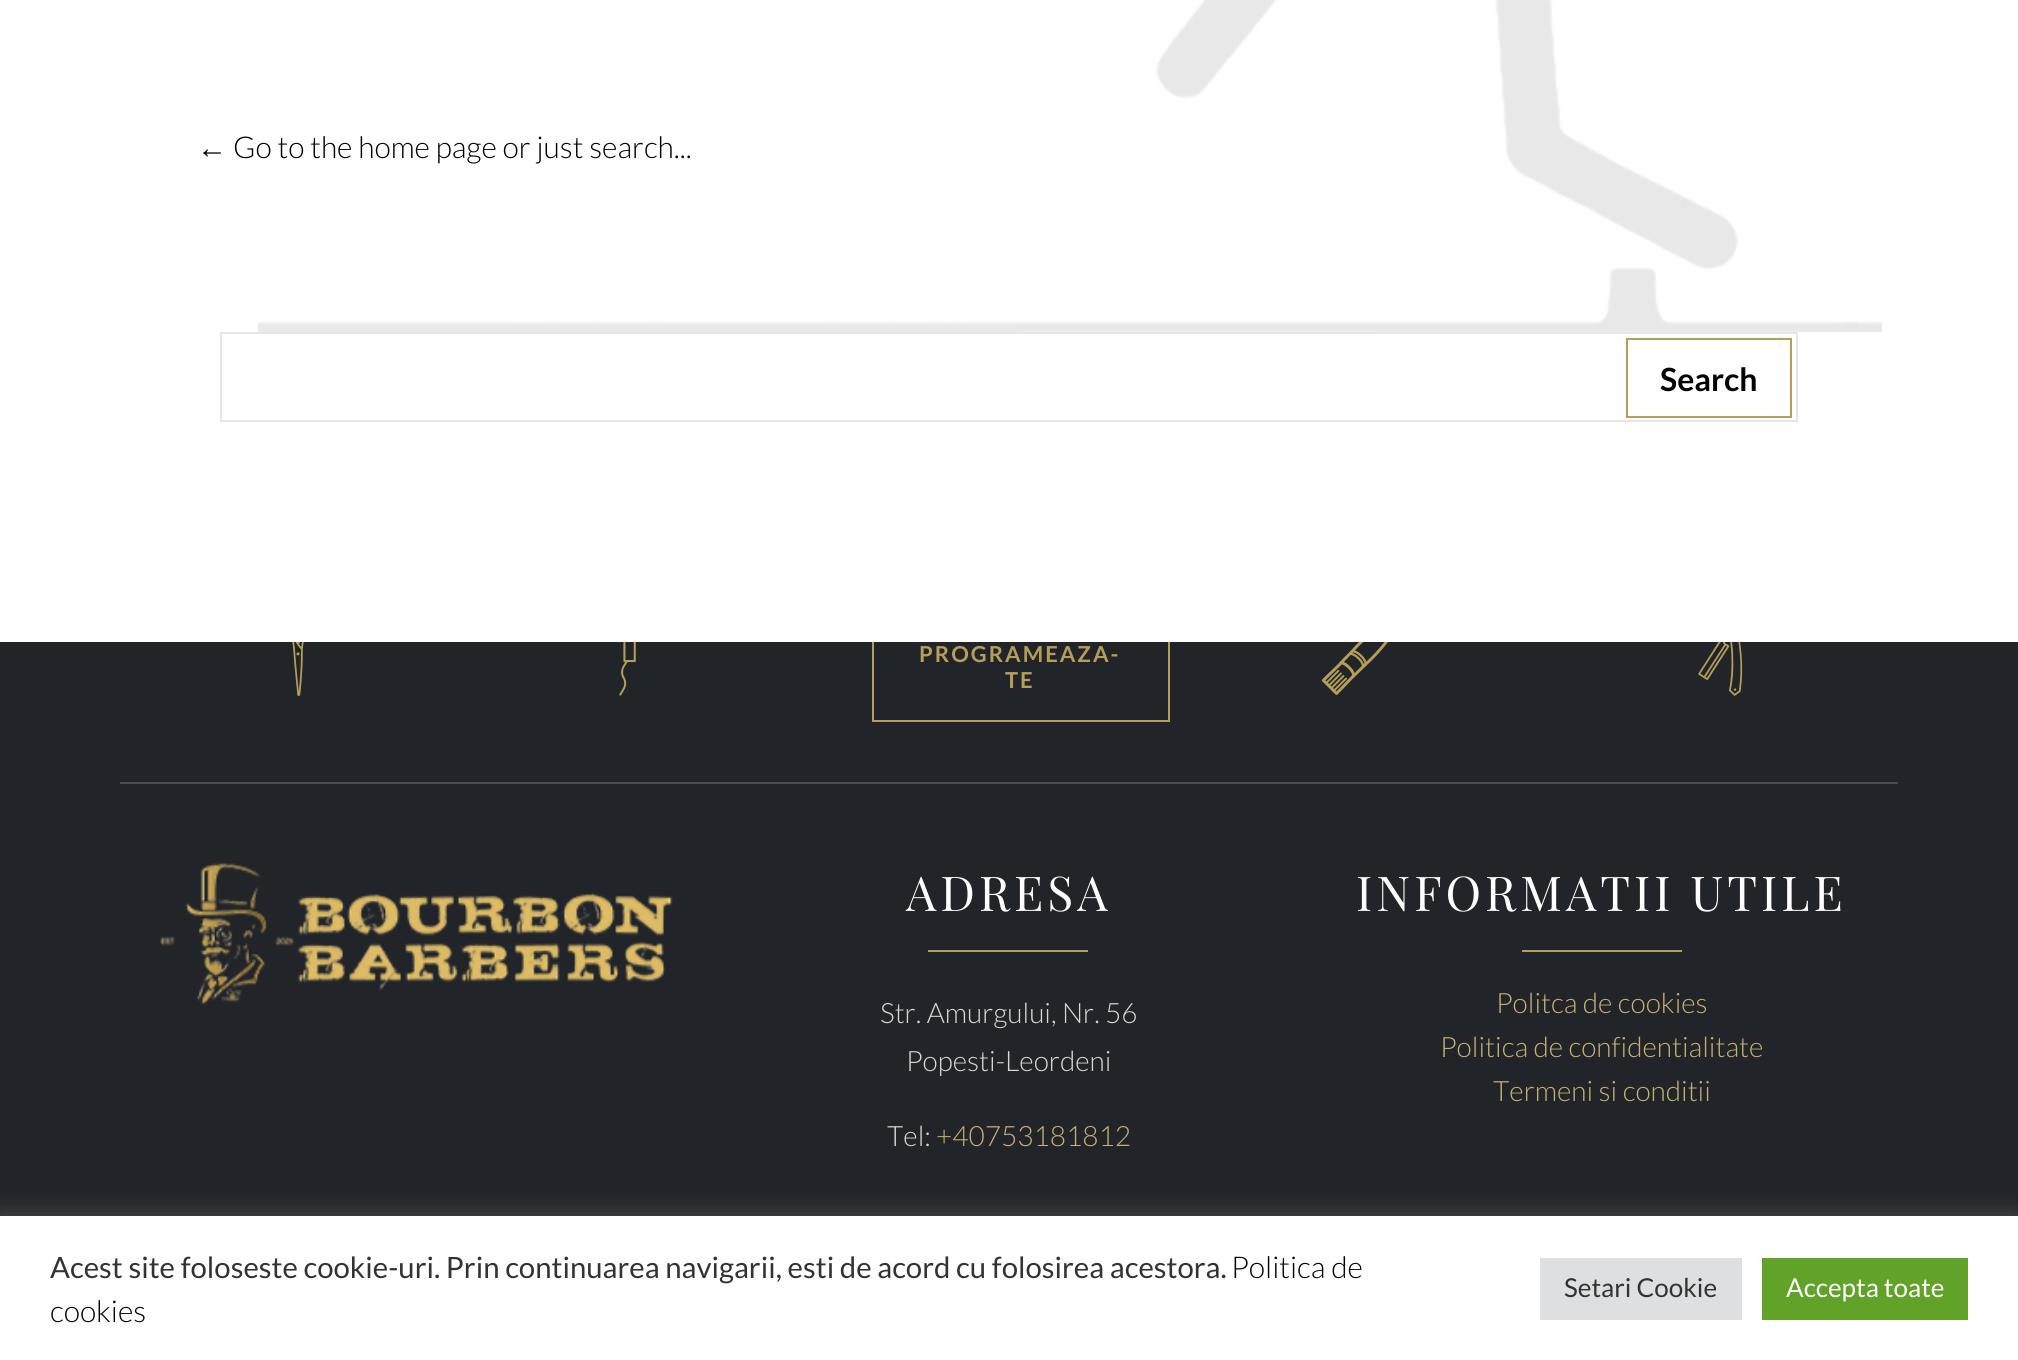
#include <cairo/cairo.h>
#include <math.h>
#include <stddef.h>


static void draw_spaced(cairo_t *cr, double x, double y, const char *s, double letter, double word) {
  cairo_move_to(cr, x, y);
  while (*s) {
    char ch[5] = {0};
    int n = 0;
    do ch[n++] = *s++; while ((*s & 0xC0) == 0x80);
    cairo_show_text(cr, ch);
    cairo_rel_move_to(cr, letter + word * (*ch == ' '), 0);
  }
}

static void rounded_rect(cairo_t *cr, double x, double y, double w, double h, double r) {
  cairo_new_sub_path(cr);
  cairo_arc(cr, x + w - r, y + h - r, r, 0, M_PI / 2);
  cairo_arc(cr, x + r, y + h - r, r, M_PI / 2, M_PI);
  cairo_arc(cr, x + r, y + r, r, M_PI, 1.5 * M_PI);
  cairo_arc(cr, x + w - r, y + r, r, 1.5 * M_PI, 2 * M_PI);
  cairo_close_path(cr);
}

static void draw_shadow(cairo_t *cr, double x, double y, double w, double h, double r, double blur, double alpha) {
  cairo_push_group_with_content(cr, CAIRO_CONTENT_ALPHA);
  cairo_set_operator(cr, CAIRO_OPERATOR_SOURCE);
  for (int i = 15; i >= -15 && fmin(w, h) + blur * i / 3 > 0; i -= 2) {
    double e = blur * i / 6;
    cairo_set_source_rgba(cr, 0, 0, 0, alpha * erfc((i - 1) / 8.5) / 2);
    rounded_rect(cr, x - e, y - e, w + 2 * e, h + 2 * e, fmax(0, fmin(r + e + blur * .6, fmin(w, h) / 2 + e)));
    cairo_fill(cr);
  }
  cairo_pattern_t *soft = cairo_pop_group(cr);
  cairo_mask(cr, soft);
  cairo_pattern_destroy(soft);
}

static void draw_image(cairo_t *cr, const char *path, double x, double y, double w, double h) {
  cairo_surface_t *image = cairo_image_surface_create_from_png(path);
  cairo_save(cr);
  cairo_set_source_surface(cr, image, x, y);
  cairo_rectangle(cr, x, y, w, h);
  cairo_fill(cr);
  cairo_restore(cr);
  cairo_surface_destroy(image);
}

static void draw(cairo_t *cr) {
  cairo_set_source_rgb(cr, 33 / 255.0, 37 / 255.0, 41 / 255.0);
  cairo_paint(cr);
  cairo_rectangle(cr, 873, 613, 296, 108);
  cairo_set_source_rgb(cr, 182 / 255.0, 158 / 255.0, 89 / 255.0);
  cairo_stroke(cr);
  cairo_set_source_rgb(cr, 1, 1, 1);
  cairo_rectangle(cr, 0, 0, 2018, 642);
  cairo_fill(cr);
  draw_image(cr, "images/1.png", 257, 0, 1625, 332);
  cairo_rectangle(cr, 221, 333, 1576, 88);
  cairo_set_source_rgb(cr, 230 / 255.0, 230 / 255.0, 230 / 255.0);
  cairo_stroke(cr);
  cairo_rectangle(cr, 1627, 339, 164, 78);
  cairo_set_source_rgb(cr, 182 / 255.0, 158 / 255.0, 89 / 255.0);
  cairo_stroke(cr);
  cairo_set_source_rgb(cr, 74 / 255.0, 77 / 255.0, 80 / 255.0);
  cairo_rectangle(cr, 120, 782, 1778, 2);
  cairo_fill(cr);
  draw_image(cr, "images/2.png", 292, 642, 12, 54);
  draw_image(cr, "images/3.png", 619, 642, 17, 54);
  draw_image(cr, "images/4.png", 1321, 642, 67, 53);
  draw_image(cr, "images/5.png", 1698, 642, 45, 54);
  draw_image(cr, "images/6.png", 160, 863, 513, 141);
  cairo_set_source_rgb(cr, 182 / 255.0, 158 / 255.0, 89 / 255.0);
  cairo_rectangle(cr, 928, 950, 160, 2);
  cairo_fill(cr);
  cairo_rectangle(cr, 1522, 950, 160, 2);
  cairo_fill(cr);
  cairo_set_source_rgb(cr, 172 / 255.0, 171 / 255.0, 171 / 255.0);
  draw_shadow(cr, 0, 1214, 2018, 144, 0, 10, 0.3);
  cairo_set_source_rgb(cr, 1, 1, 1);
  cairo_rectangle(cr, 0, 1216, 2018, 144);
  cairo_fill(cr);
  cairo_set_source_rgb(cr, 222 / 255.0, 223 / 255.0, 224 / 255.0);
  cairo_rectangle(cr, 1540, 1258, 202, 62);
  cairo_fill(cr);
  cairo_set_source_rgb(cr, 97 / 255.0, 162 / 255.0, 41 / 255.0);
  cairo_rectangle(cr, 1762, 1258, 206, 62);
  cairo_fill(cr);
  cairo_select_font_face(cr, "Liberation Serif", CAIRO_FONT_SLANT_NORMAL, CAIRO_FONT_WEIGHT_NORMAL);
  cairo_set_font_size(cr, 30);
  cairo_set_source_rgb(cr, 0, 0, 0);
  cairo_move_to(cr, 197, 158);
  cairo_show_text(cr, "←");
  cairo_select_font_face(cr, "Lato Light", CAIRO_FONT_SLANT_NORMAL, CAIRO_FONT_WEIGHT_NORMAL);
  cairo_move_to(cr, 233, 158);
  cairo_show_text(cr, "Go to the home page or just search...");
  cairo_select_font_face(cr, "Lato", CAIRO_FONT_SLANT_NORMAL, CAIRO_FONT_WEIGHT_BOLD);
  cairo_set_font_size(cr, 32);
  cairo_move_to(cr, 1660, 391);
  cairo_show_text(cr, "Search");
  cairo_set_font_size(cr, 22);
  cairo_set_source_rgb(cr, 182 / 255.0, 158 / 255.0, 89 / 255.0);
  draw_spaced(cr, 919, 662, "PROGRAMEAZA-", 2, 0);
  draw_spaced(cr, 1005, 688, "TE", 2, 0);
  cairo_select_font_face(cr, "Playfair Display", CAIRO_FONT_SLANT_NORMAL, CAIRO_FONT_WEIGHT_NORMAL);
  cairo_set_font_size(cr, 48);
  cairo_set_source_rgb(cr, 1, 1, 1);
  draw_spaced(cr, 906, 911, "ADRESA", 4, 0);
  cairo_select_font_face(cr, "Lato Light", CAIRO_FONT_SLANT_NORMAL, CAIRO_FONT_WEIGHT_NORMAL);
  cairo_set_font_size(cr, 28);
  cairo_set_source_rgb(cr, 216 / 255.0, 216 / 255.0, 216 / 255.0);
  cairo_move_to(cr, 880, 1023);
  cairo_show_text(cr, "Str. Amurgului, Nr. 56");
  cairo_move_to(cr, 906, 1071);
  cairo_show_text(cr, "Popesti-Leordeni");
  cairo_move_to(cr, 887, 1146);
  cairo_show_text(cr, "Tel:");
  cairo_set_source_rgb(cr, 200 / 255.0, 177 / 255.0, 112 / 255.0);
  cairo_move_to(cr, 936, 1146);
  cairo_show_text(cr, "+40753181812");
  cairo_select_font_face(cr, "Playfair Display", CAIRO_FONT_SLANT_NORMAL, CAIRO_FONT_WEIGHT_NORMAL);
  cairo_set_font_size(cr, 48);
  cairo_set_source_rgb(cr, 1, 1, 1);
  draw_spaced(cr, 1356, 911, "INFORMATII UTILE", 4, 0);
  cairo_select_font_face(cr, "Lato Light", CAIRO_FONT_SLANT_NORMAL, CAIRO_FONT_WEIGHT_NORMAL);
  cairo_set_font_size(cr, 28);
  cairo_set_source_rgb(cr, 200 / 255.0, 177 / 255.0, 112 / 255.0);
  cairo_move_to(cr, 1496, 1013);
  cairo_show_text(cr, "Politca de cookies");
  cairo_move_to(cr, 1440, 1057);
  cairo_show_text(cr, "Politica de confidentialitate");
  cairo_move_to(cr, 1493, 1101);
  cairo_show_text(cr, "Termeni si conditii");
  cairo_select_font_face(cr, "Lato", CAIRO_FONT_SLANT_NORMAL, CAIRO_FONT_WEIGHT_NORMAL);
  cairo_set_font_size(cr, 29.35);
  cairo_set_source_rgb(cr, 51 / 255.0, 51 / 255.0, 51 / 255.0);
  cairo_move_to(cr, 50, 1278);
  cairo_show_text(cr, "Acest site foloseste cookie-uri. Prin continuarea navigarii, esti de acord cu folosirea acestora.");
  cairo_select_font_face(cr, "Lato Light", CAIRO_FONT_SLANT_NORMAL, CAIRO_FONT_WEIGHT_NORMAL);
  cairo_set_font_size(cr, 30);
  cairo_set_source_rgb(cr, 0, 0, 0);
  cairo_move_to(cr, 1231, 1278);
  cairo_show_text(cr, "Politica de");
  cairo_move_to(cr, 50, 1322);
  cairo_show_text(cr, "cookies");
  cairo_select_font_face(cr, "Lato", CAIRO_FONT_SLANT_NORMAL, CAIRO_FONT_WEIGHT_NORMAL);
  cairo_set_font_size(cr, 26);
  cairo_set_source_rgb(cr, 51 / 255.0, 51 / 255.0, 51 / 255.0);
  cairo_move_to(cr, 1564, 1297);
  cairo_show_text(cr, "Setari Cookie");
  cairo_set_source_rgb(cr, 1, 1, 1);
  cairo_move_to(cr, 1786, 1297);
  cairo_show_text(cr, "Accepta toate");
}

int main(void) {
  cairo_surface_t *surface = cairo_image_surface_create(CAIRO_FORMAT_RGB24, 2018, 1360);
  cairo_t *cr = cairo_create(surface);
  cairo_font_options_t *options = cairo_font_options_create();
  cairo_font_options_set_hint_metrics(options, CAIRO_HINT_METRICS_OFF);
  cairo_font_options_set_hint_style(options, CAIRO_HINT_STYLE_NONE);
  cairo_set_font_options(cr, options);
  cairo_set_miter_limit(cr, 4);
  draw(cr);
  cairo_surface_write_to_png(surface, "out.png");
  cairo_font_options_destroy(options);
  cairo_destroy(cr);
  cairo_surface_destroy(surface);
  return 0;
}
